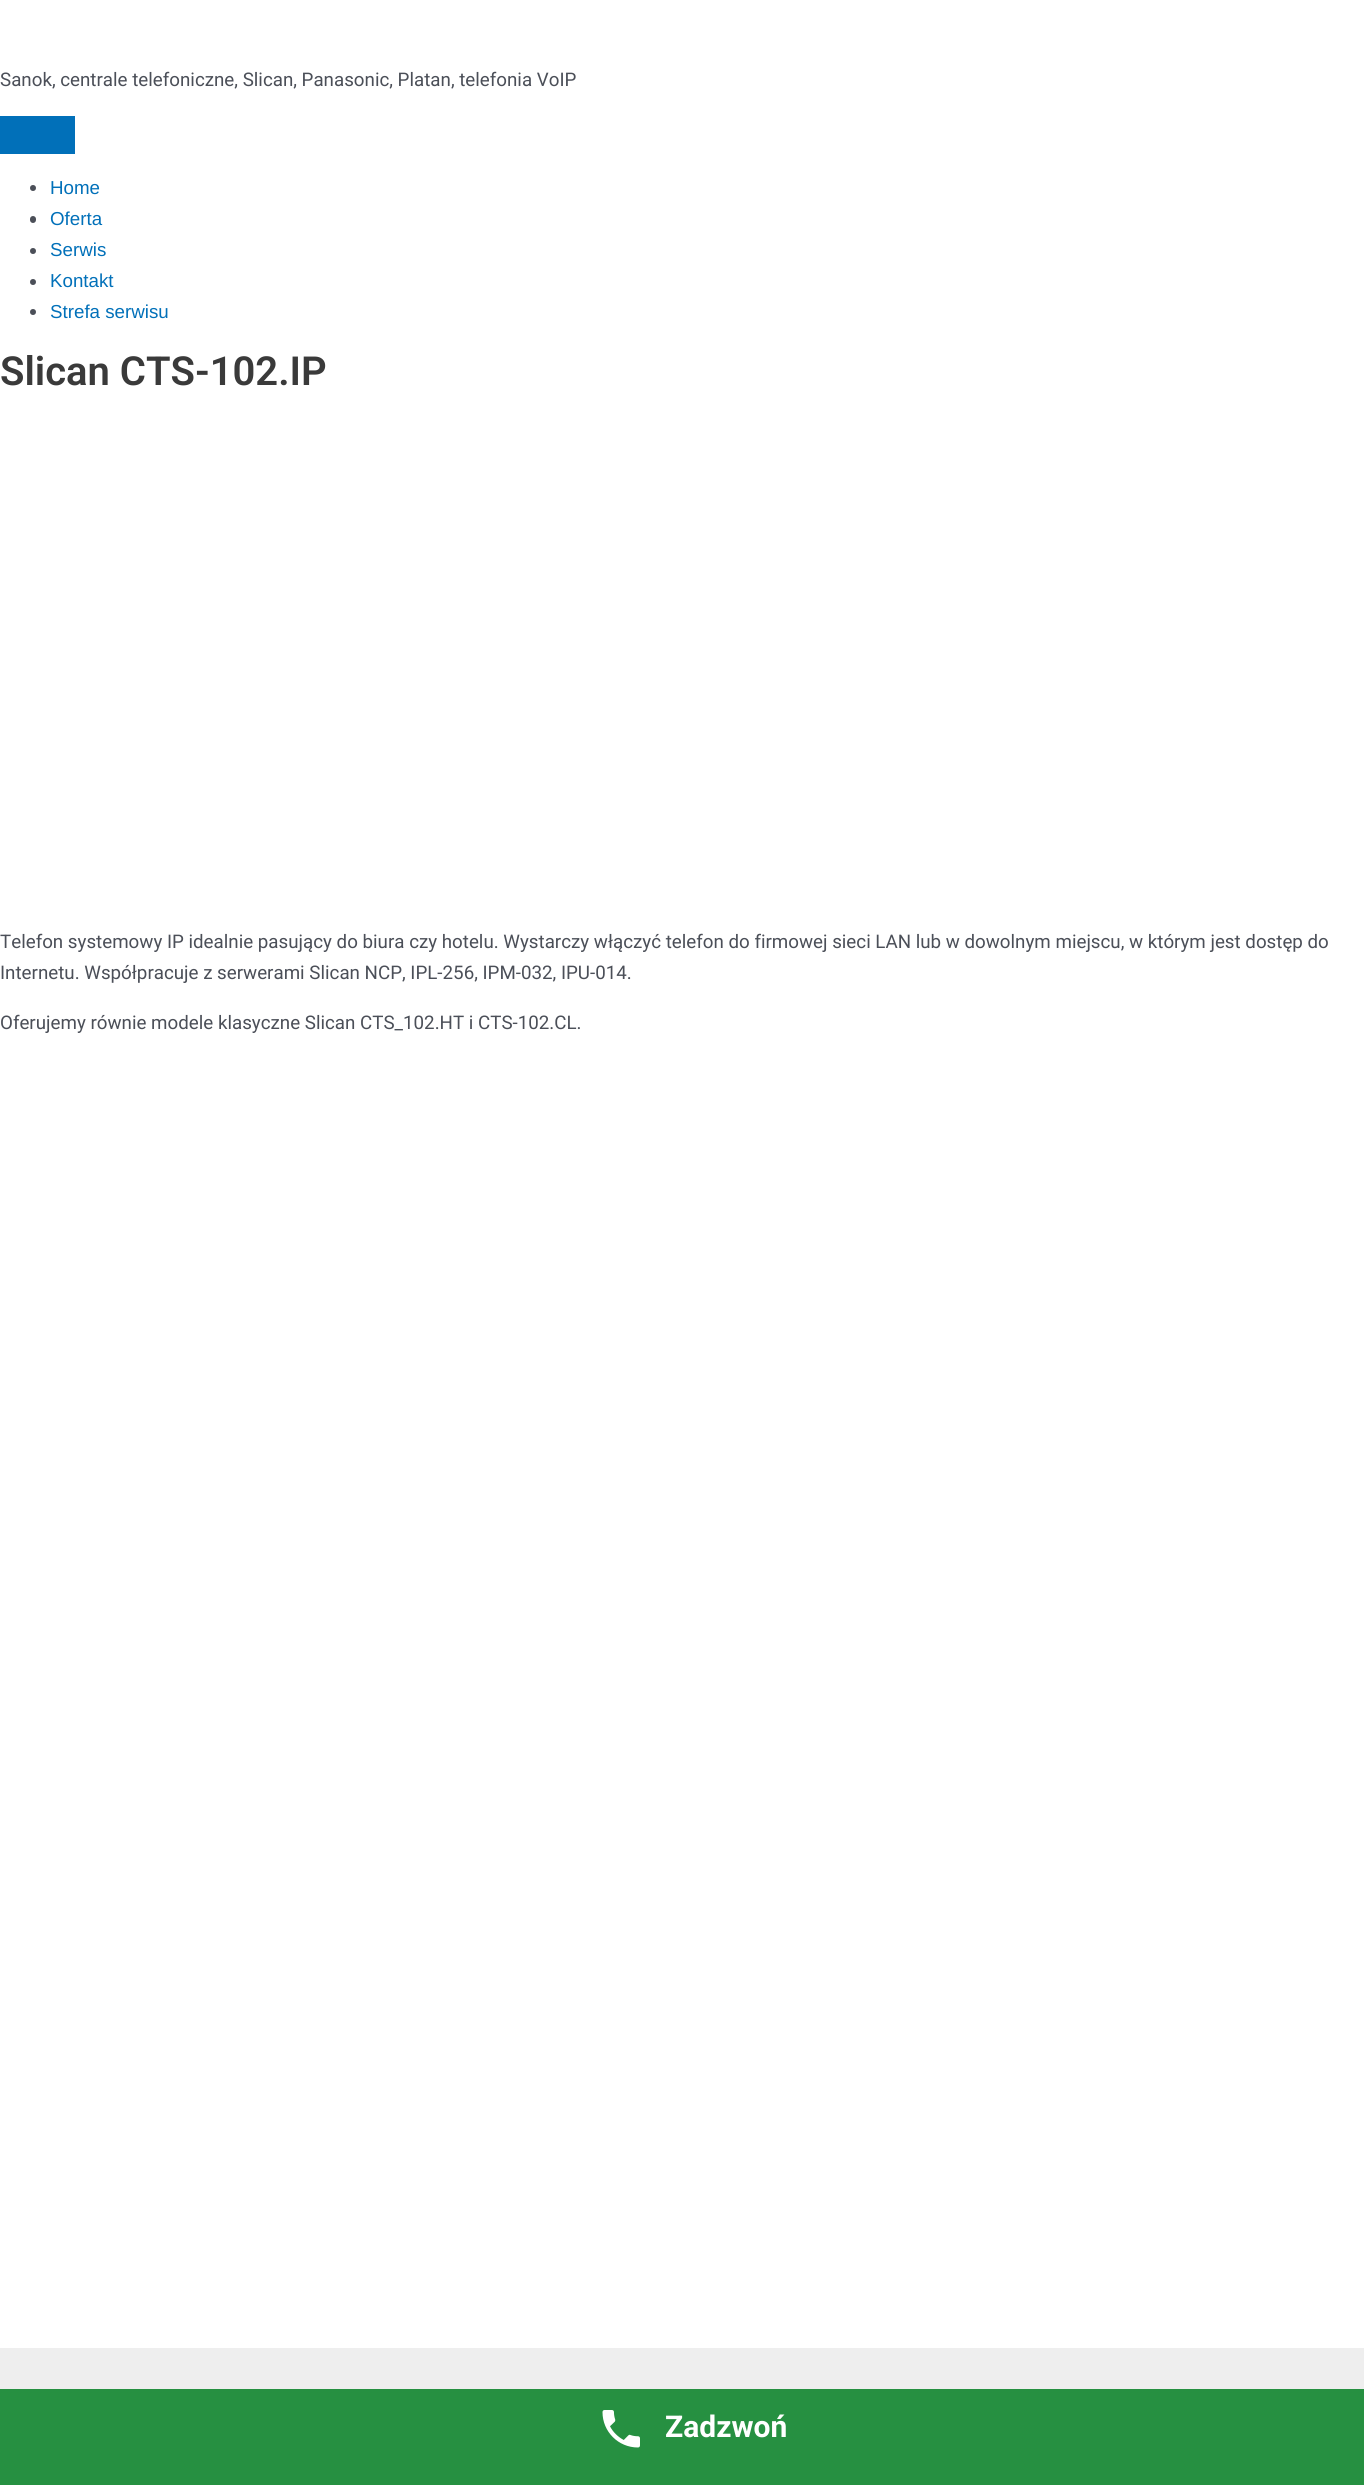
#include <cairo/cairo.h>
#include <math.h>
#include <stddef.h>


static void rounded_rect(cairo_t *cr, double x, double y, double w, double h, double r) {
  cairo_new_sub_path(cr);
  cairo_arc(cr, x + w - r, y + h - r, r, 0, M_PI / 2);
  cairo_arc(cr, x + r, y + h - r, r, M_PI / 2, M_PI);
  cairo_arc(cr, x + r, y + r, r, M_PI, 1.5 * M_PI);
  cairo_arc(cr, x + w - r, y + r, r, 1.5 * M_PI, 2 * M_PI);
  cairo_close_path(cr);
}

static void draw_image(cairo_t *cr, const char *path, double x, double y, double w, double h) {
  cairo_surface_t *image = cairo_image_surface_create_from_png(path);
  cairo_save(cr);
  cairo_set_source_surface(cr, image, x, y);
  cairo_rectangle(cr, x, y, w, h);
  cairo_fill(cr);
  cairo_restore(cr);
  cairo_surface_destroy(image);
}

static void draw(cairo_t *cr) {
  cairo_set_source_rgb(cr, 1, 1, 1);
  cairo_paint(cr);
  cairo_set_source_rgb(cr, 1 / 255.0, 112 / 255.0, 185 / 255.0);
  cairo_rectangle(cr, 0, 116, 75, 38);
  cairo_fill(cr);
  cairo_set_source_rgb(cr, 75 / 255.0, 79 / 255.0, 88 / 255.0);
  cairo_arc(cr, 33, 188, 3, 0, 2 * M_PI);
  cairo_fill(cr);
  rounded_rect(cr, 30, 216, 6, 7, 3);
  cairo_fill(cr);
  cairo_arc(cr, 33, 251, 3, 0, 2 * M_PI);
  cairo_fill(cr);
  cairo_arc(cr, 33, 282, 3, 0, 2 * M_PI);
  cairo_fill(cr);
  cairo_arc(cr, 33, 312, 3, 0, 2 * M_PI);
  cairo_fill(cr);
  cairo_set_source_rgb(cr, 238 / 255.0, 238 / 255.0, 238 / 255.0);
  cairo_rectangle(cr, 0, 2348, 1364, 41);
  cairo_fill(cr);
  cairo_set_source_rgb(cr, 38 / 255.0, 144 / 255.0, 65 / 255.0);
  cairo_rectangle(cr, 0, 2389, 1364, 96);
  cairo_fill(cr);
  draw_image(cr, "images/1.png", 602, 2410, 38, 38);
  cairo_select_font_face(cr, "Roboto", CAIRO_FONT_SLANT_NORMAL, CAIRO_FONT_WEIGHT_NORMAL);
  cairo_set_font_size(cr, 18.75);
  cairo_set_source_rgb(cr, 75 / 255.0, 79 / 255.0, 88 / 255.0);
  cairo_move_to(cr, 0, 86);
  cairo_show_text(cr, "Sanok, centrale telefoniczne, Slican, Panasonic, Platan, telefonia VoIP");
  cairo_select_font_face(cr, "Liberation Sans", CAIRO_FONT_SLANT_NORMAL, CAIRO_FONT_WEIGHT_NORMAL);
  cairo_set_source_rgb(cr, 1 / 255.0, 112 / 255.0, 185 / 255.0);
  cairo_move_to(cr, 50, 194);
  cairo_show_text(cr, "Home");
  cairo_move_to(cr, 50, 225);
  cairo_show_text(cr, "Oferta");
  cairo_move_to(cr, 50, 256);
  cairo_show_text(cr, "Serwis");
  cairo_move_to(cr, 50, 287);
  cairo_show_text(cr, "Kontakt");
  cairo_move_to(cr, 50, 318);
  cairo_show_text(cr, "Strefa serwisu");
  cairo_select_font_face(cr, "Roboto SemiBold", CAIRO_FONT_SLANT_NORMAL, CAIRO_FONT_WEIGHT_NORMAL);
  cairo_set_font_size(cr, 40);
  cairo_set_source_rgb(cr, 58 / 255.0, 58 / 255.0, 58 / 255.0);
  cairo_move_to(cr, 0, 385);
  cairo_show_text(cr, "Slican CTS-102.IP");
  cairo_select_font_face(cr, "Roboto", CAIRO_FONT_SLANT_NORMAL, CAIRO_FONT_WEIGHT_NORMAL);
  cairo_set_font_size(cr, 18.75);
  cairo_set_source_rgb(cr, 75 / 255.0, 79 / 255.0, 88 / 255.0);
  cairo_move_to(cr, 0, 948);
  cairo_show_text(cr, "Telefon systemowy IP idealnie pasujący do biura czy hotelu. Wystarczy włączyć telefon do firmowej sieci LAN lub w dowolnym miejscu, w którym jest dostęp do");
  cairo_move_to(cr, 0, 979);
  cairo_show_text(cr, "Internetu. Współpracuje z serwerami Slican NCP, IPL-256, IPM-032, IPU-014.");
  cairo_move_to(cr, 0, 1029);
  cairo_show_text(cr, "Oferujemy równie modele klasyczne Slican CTS_102.HT i CTS-102.CL.");
  cairo_select_font_face(cr, "Roboto", CAIRO_FONT_SLANT_NORMAL, CAIRO_FONT_WEIGHT_BOLD);
  cairo_set_font_size(cr, 30);
  cairo_set_source_rgb(cr, 1, 1, 1);
  cairo_move_to(cr, 665, 2437);
  cairo_show_text(cr, "Zadzwoń");
}

int main(void) {
  cairo_surface_t *surface = cairo_image_surface_create(CAIRO_FORMAT_RGB24, 1364, 2485);
  cairo_t *cr = cairo_create(surface);
  cairo_font_options_t *options = cairo_font_options_create();
  cairo_font_options_set_hint_metrics(options, CAIRO_HINT_METRICS_OFF);
  cairo_font_options_set_hint_style(options, CAIRO_HINT_STYLE_NONE);
  cairo_set_font_options(cr, options);
  cairo_set_miter_limit(cr, 4);
  draw(cr);
  cairo_surface_write_to_png(surface, "out.png");
  cairo_font_options_destroy(options);
  cairo_destroy(cr);
  cairo_surface_destroy(surface);
  return 0;
}
